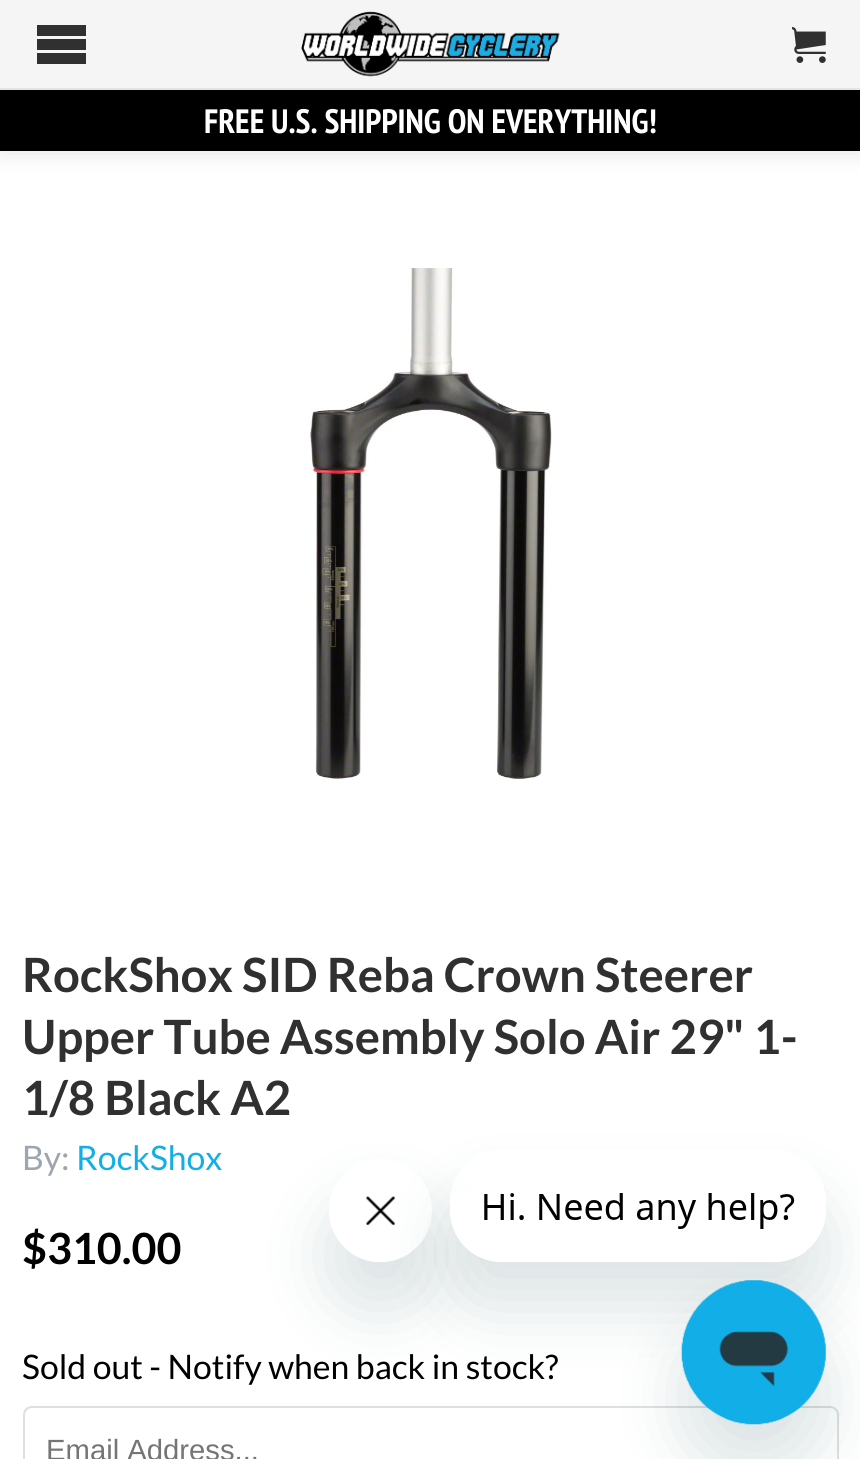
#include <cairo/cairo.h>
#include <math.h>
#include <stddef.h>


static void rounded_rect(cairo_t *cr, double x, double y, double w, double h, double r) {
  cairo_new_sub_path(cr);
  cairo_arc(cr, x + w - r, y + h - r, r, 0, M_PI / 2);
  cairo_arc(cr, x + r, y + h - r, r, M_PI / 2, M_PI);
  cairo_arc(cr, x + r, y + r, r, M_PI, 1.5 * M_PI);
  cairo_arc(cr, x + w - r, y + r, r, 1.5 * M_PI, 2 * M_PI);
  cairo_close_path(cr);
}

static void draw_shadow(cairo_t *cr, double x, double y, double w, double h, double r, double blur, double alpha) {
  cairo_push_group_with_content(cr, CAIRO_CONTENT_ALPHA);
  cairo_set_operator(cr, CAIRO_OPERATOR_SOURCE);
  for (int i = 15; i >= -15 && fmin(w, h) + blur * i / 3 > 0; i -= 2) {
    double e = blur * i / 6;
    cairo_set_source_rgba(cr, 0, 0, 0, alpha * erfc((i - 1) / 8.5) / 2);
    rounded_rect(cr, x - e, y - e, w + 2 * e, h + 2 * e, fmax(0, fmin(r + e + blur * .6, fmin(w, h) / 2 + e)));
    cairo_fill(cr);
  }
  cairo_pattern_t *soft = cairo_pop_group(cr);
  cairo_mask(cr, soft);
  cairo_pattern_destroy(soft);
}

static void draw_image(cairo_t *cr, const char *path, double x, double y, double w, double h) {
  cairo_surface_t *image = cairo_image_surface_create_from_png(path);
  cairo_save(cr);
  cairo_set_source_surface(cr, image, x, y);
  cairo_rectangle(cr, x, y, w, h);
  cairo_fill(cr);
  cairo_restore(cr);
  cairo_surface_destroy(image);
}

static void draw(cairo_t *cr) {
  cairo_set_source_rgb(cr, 1, 1, 1);
  cairo_paint(cr);
  cairo_set_source_rgb(cr, 0, 0, 0);
  draw_shadow(cr, 0, 92, 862, 61, 0, 11, 0.1);
  cairo_set_source_rgb(cr, 245 / 255.0, 245 / 255.0, 245 / 255.0);
  cairo_rectangle(cr, 0, 0, 860, 88);
  cairo_fill(cr);
  draw_image(cr, "images/1.png", 301, 11, 259, 66);
  cairo_set_source_rgb(cr, 227 / 255.0, 227 / 255.0, 227 / 255.0);
  cairo_rectangle(cr, 0, 88, 860, 2);
  cairo_fill(cr);
  cairo_set_source_rgb(cr, 48 / 255.0, 48 / 255.0, 48 / 255.0);
  cairo_new_path(cr);
  cairo_move_to(cr, 37, 25);
  cairo_line_to(cr, 37, 36);
  cairo_line_to(cr, 86, 36);
  cairo_line_to(cr, 86, 25);
  cairo_close_path(cr);
  cairo_move_to(cr, 37, 39);
  cairo_line_to(cr, 37, 50);
  cairo_line_to(cr, 86, 50);
  cairo_line_to(cr, 86, 39);
  cairo_close_path(cr);
  cairo_move_to(cr, 37, 53);
  cairo_line_to(cr, 37, 64);
  cairo_line_to(cr, 86, 64);
  cairo_line_to(cr, 86, 53);
  cairo_close_path(cr);
  cairo_fill(cr);
  draw_image(cr, "images/2.png", 792, 27, 34, 36);
  cairo_set_source_rgb(cr, 0, 0, 0);
  cairo_rectangle(cr, 0, 90, 860, 61);
  cairo_fill(cr);
  draw_image(cr, "images/3.png", 310, 268, 242, 511);
  rounded_rect(cr, 24, 1407, 814, 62, 8);
  cairo_set_source_rgb(cr, 220 / 255.0, 224 / 255.0, 224 / 255.0);
  cairo_stroke(cr);
  cairo_save(cr);
  cairo_set_fill_rule(cr, CAIRO_FILL_RULE_EVEN_ODD);
  cairo_new_path(cr);
  cairo_move_to(cr, 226, 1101);
  cairo_line_to(cr, 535, 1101);
  cairo_line_to(cr, 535, 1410);
  cairo_line_to(cr, 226, 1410);
  cairo_close_path(cr);
  cairo_move_to(cr, 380.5, 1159);
  cairo_curve_to(cr, 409, 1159, 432, 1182, 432, 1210.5);
  cairo_curve_to(cr, 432, 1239, 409, 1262, 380.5, 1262);
  cairo_curve_to(cr, 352, 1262, 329, 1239, 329, 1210.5);
  cairo_curve_to(cr, 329, 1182, 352, 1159, 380.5, 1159);
  cairo_close_path(cr);
  cairo_clip(cr);
  cairo_set_source_rgb(cr, 23 / 255.0, 73 / 255.0, 77 / 255.0);
  draw_shadow(cr, 329, 1204, 103, 103, 51.5, 34, 0.15);
  cairo_restore(cr);
  draw_image(cr, "images/5.png", 348, 1196, 63, 66);
  cairo_save(cr);
  cairo_set_fill_rule(cr, CAIRO_FILL_RULE_EVEN_ODD);
  cairo_new_path(cr);
  cairo_move_to(cr, 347, 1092);
  cairo_line_to(cr, 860, 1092);
  cairo_line_to(cr, 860, 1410);
  cairo_line_to(cr, 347, 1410);
  cairo_close_path(cr);
  cairo_move_to(cr, 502, 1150);
  cairo_line_to(cr, 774, 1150);
  cairo_curve_to(cr, 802.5, 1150, 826, 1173.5, 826, 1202);
  cairo_line_to(cr, 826, 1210);
  cairo_curve_to(cr, 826, 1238.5, 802.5, 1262, 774, 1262);
  cairo_line_to(cr, 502, 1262);
  cairo_curve_to(cr, 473.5, 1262, 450, 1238.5, 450, 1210);
  cairo_line_to(cr, 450, 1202);
  cairo_curve_to(cr, 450, 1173.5, 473.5, 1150, 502, 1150);
  cairo_close_path(cr);
  cairo_clip(cr);
  cairo_set_source_rgb(cr, 23 / 255.0, 73 / 255.0, 77 / 255.0);
  draw_shadow(cr, 450, 1195, 376, 112, 52, 34, 0.15);
  cairo_restore(cr);
  draw_image(cr, "images/4.png", 450, 1193, 356, 69);
  cairo_set_source_rgb(cr, 23 / 255.0, 73 / 255.0, 77 / 255.0);
  draw_shadow(cr, 682, 1325, 144, 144, 72, 34, 0.15);
  draw_image(cr, "images/6.png", 681, 1280, 145, 145);
  cairo_select_font_face(cr, "PT Sans Narrow", CAIRO_FONT_SLANT_NORMAL, CAIRO_FONT_WEIGHT_BOLD);
  cairo_set_font_size(cr, 33.75);
  cairo_set_source_rgb(cr, 1, 1, 1);
  cairo_move_to(cr, 204, 133);
  cairo_show_text(cr, "FREE U.S. SHIPPING ON EVERYTHING!");
  cairo_select_font_face(cr, "Lato", CAIRO_FONT_SLANT_NORMAL, CAIRO_FONT_WEIGHT_BOLD);
  cairo_set_font_size(cr, 47.25);
  cairo_set_source_rgb(cr, 48 / 255.0, 48 / 255.0, 48 / 255.0);
  cairo_move_to(cr, 22, 992);
  cairo_show_text(cr, "RockShox SID Reba Crown Steerer");
  cairo_move_to(cr, 22, 1054);
  cairo_show_text(cr, "Upper Tube Assembly Solo Air 29\" 1-");
  cairo_move_to(cr, 22, 1115);
  cairo_show_text(cr, "1/8 Black A2");
  cairo_select_font_face(cr, "Lato", CAIRO_FONT_SLANT_NORMAL, CAIRO_FONT_WEIGHT_NORMAL);
  cairo_set_font_size(cr, 33.75);
  cairo_set_source_rgb(cr, 157 / 255.0, 166 / 255.0, 174 / 255.0);
  cairo_move_to(cr, 22, 1170);
  cairo_show_text(cr, "By:");
  cairo_set_source_rgb(cr, 18 / 255.0, 174 / 255.0, 232 / 255.0);
  cairo_move_to(cr, 76, 1170);
  cairo_show_text(cr, "RockShox");
  cairo_select_font_face(cr, "Lato", CAIRO_FONT_SLANT_NORMAL, CAIRO_FONT_WEIGHT_BOLD);
  cairo_set_font_size(cr, 43);
  cairo_set_source_rgb(cr, 0, 0, 0);
  cairo_move_to(cr, 22, 1264);
  cairo_show_text(cr, "$310.00");
  cairo_select_font_face(cr, "Lato", CAIRO_FONT_SLANT_NORMAL, CAIRO_FONT_WEIGHT_NORMAL);
  cairo_set_font_size(cr, 33.75);
  cairo_move_to(cr, 22, 1379);
  cairo_show_text(cr, "Sold out - Notify when back in stock?");
  cairo_select_font_face(cr, "Liberation Sans", CAIRO_FONT_SLANT_NORMAL, CAIRO_FONT_WEIGHT_NORMAL);
  cairo_set_font_size(cr, 29.25);
  cairo_set_source_rgb(cr, 117 / 255.0, 117 / 255.0, 117 / 255.0);
  cairo_move_to(cr, 46, 1460);
  cairo_show_text(cr, "Email Address...");
}

int main(void) {
  cairo_surface_t *surface = cairo_image_surface_create(CAIRO_FORMAT_RGB24, 860, 1459);
  cairo_t *cr = cairo_create(surface);
  cairo_font_options_t *options = cairo_font_options_create();
  cairo_font_options_set_hint_metrics(options, CAIRO_HINT_METRICS_OFF);
  cairo_font_options_set_hint_style(options, CAIRO_HINT_STYLE_NONE);
  cairo_set_font_options(cr, options);
  cairo_set_miter_limit(cr, 4);
  draw(cr);
  cairo_surface_write_to_png(surface, "out.png");
  cairo_font_options_destroy(options);
  cairo_destroy(cr);
  cairo_surface_destroy(surface);
  return 0;
}
